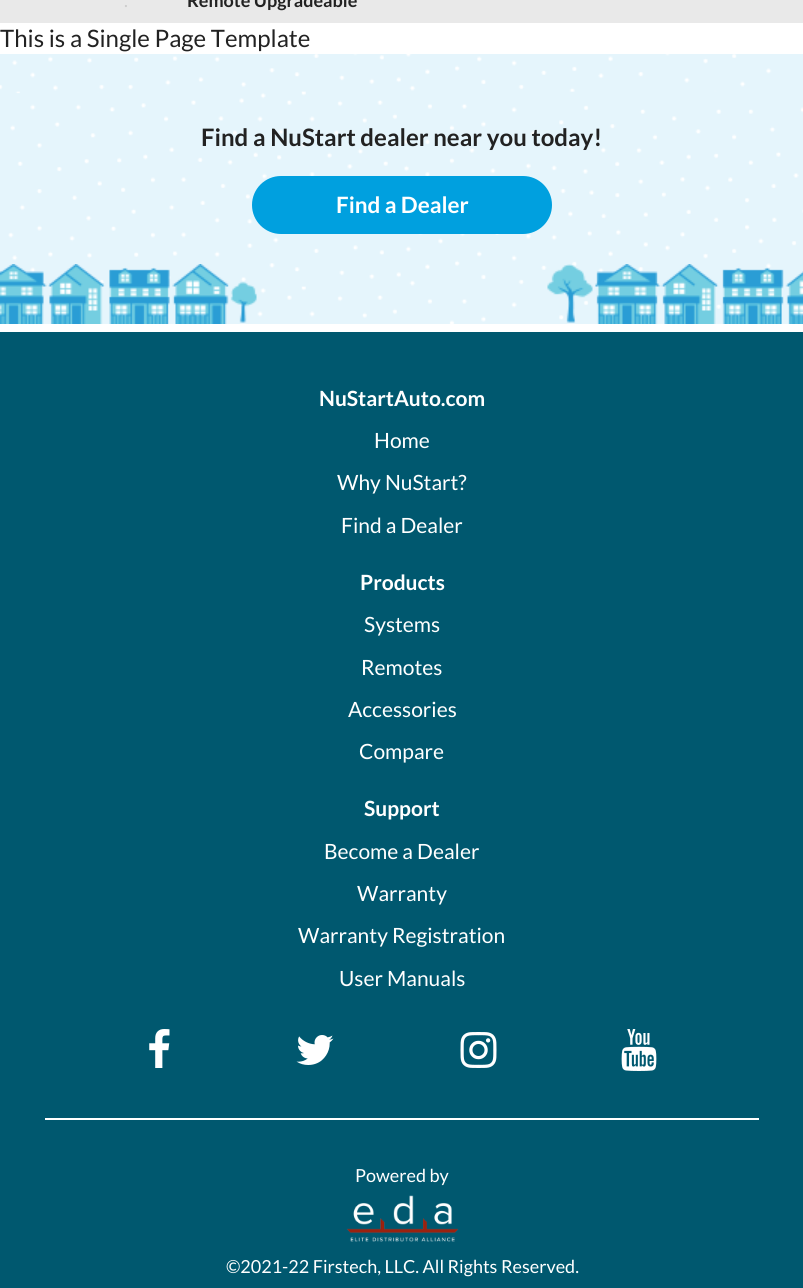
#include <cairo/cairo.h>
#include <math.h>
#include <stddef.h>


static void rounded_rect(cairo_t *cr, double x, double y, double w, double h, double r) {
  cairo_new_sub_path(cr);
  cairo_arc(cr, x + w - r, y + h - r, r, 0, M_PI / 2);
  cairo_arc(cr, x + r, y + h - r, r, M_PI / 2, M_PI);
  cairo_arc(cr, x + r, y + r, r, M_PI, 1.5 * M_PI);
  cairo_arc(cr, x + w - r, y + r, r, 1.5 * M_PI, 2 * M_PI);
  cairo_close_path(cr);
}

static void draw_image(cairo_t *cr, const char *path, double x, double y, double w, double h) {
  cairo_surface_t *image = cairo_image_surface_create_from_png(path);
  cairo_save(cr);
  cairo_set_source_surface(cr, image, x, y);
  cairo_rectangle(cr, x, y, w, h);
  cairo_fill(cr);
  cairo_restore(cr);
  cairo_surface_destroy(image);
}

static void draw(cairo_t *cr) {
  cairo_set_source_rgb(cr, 1, 1, 1);
  cairo_paint(cr);
  cairo_set_source_rgb(cr, 233 / 255.0, 233 / 255.0, 233 / 255.0);
  cairo_rectangle(cr, 0, 0, 803, 23);
  cairo_fill(cr);
  cairo_set_source_rgb(cr, 229 / 255.0, 245 / 255.0, 252 / 255.0);
  cairo_rectangle(cr, 0, 54, 803, 270);
  cairo_fill(cr);
  draw_image(cr, "images/1.png", 0, 54, 803, 270);
  cairo_set_source_rgb(cr, 0, 160 / 255.0, 223 / 255.0);
  rounded_rect(cr, 252, 176, 300, 58, 29);
  cairo_fill(cr);
  cairo_set_source_rgb(cr, 0, 88 / 255.0, 111 / 255.0);
  cairo_rectangle(cr, 0, 332, 803, 956);
  cairo_fill(cr);
  draw_image(cr, "images/2.png", 149, 1029, 21, 39);
  draw_image(cr, "images/3.png", 296, 1035, 38, 30);
  draw_image(cr, "images/4.png", 460, 1032, 37, 36);
  draw_image(cr, "images/5.png", 621, 1029, 36, 42);
  cairo_set_source_rgb(cr, 1, 1, 1);
  cairo_rectangle(cr, 45, 1118, 714, 2);
  cairo_fill(cr);
  draw_image(cr, "images/6.png", 346, 1195, 113, 47);
  cairo_select_font_face(cr, "Lato", CAIRO_FONT_SLANT_NORMAL, CAIRO_FONT_WEIGHT_NORMAL);
  cairo_set_font_size(cr, 18);
  cairo_set_source_rgb(cr, 204 / 255.0, 204 / 255.0, 204 / 255.0);
  cairo_move_to(cr, 124, 7);
  cairo_show_text(cr, ".");
  cairo_select_font_face(cr, "Lato", CAIRO_FONT_SLANT_NORMAL, CAIRO_FONT_WEIGHT_BOLD);
  cairo_set_source_rgb(cr, 34 / 255.0, 34 / 255.0, 34 / 255.0);
  cairo_move_to(cr, 187, 7);
  cairo_show_text(cr, "Remote Upgradeable");
  cairo_select_font_face(cr, "Lato", CAIRO_FONT_SLANT_NORMAL, CAIRO_FONT_WEIGHT_NORMAL);
  cairo_set_font_size(cr, 24);
  cairo_move_to(cr, 0, 47);
  cairo_show_text(cr, "This is a Single Page Template");
  cairo_select_font_face(cr, "Lato", CAIRO_FONT_SLANT_NORMAL, CAIRO_FONT_WEIGHT_BOLD);
  cairo_move_to(cr, 201, 146);
  cairo_show_text(cr, "Find a NuStart dealer near you today!");
  cairo_set_font_size(cr, 22.5);
  cairo_set_source_rgb(cr, 1, 1, 1);
  cairo_move_to(cr, 336, 213);
  cairo_show_text(cr, "Find a Dealer");
  cairo_set_font_size(cr, 21);
  cairo_move_to(cr, 319, 406);
  cairo_show_text(cr, "NuStartAuto.com");
  cairo_select_font_face(cr, "Lato", CAIRO_FONT_SLANT_NORMAL, CAIRO_FONT_WEIGHT_NORMAL);
  cairo_move_to(cr, 374, 448);
  cairo_show_text(cr, "Home");
  cairo_move_to(cr, 337, 490);
  cairo_show_text(cr, "Why NuStart?");
  cairo_move_to(cr, 341, 533);
  cairo_show_text(cr, "Find a Dealer");
  cairo_select_font_face(cr, "Lato", CAIRO_FONT_SLANT_NORMAL, CAIRO_FONT_WEIGHT_BOLD);
  cairo_move_to(cr, 360, 590);
  cairo_show_text(cr, "Products");
  cairo_select_font_face(cr, "Lato", CAIRO_FONT_SLANT_NORMAL, CAIRO_FONT_WEIGHT_NORMAL);
  cairo_move_to(cr, 364, 632);
  cairo_show_text(cr, "Systems");
  cairo_move_to(cr, 361, 675);
  cairo_show_text(cr, "Remotes");
  cairo_move_to(cr, 348, 717);
  cairo_show_text(cr, "Accessories");
  cairo_move_to(cr, 359, 759);
  cairo_show_text(cr, "Compare");
  cairo_select_font_face(cr, "Lato", CAIRO_FONT_SLANT_NORMAL, CAIRO_FONT_WEIGHT_BOLD);
  cairo_move_to(cr, 364, 816);
  cairo_show_text(cr, "Support");
  cairo_select_font_face(cr, "Lato", CAIRO_FONT_SLANT_NORMAL, CAIRO_FONT_WEIGHT_NORMAL);
  cairo_move_to(cr, 324, 859);
  cairo_show_text(cr, "Become a Dealer");
  cairo_move_to(cr, 357, 901);
  cairo_show_text(cr, "Warranty");
  cairo_move_to(cr, 298, 943);
  cairo_show_text(cr, "Warranty Registration");
  cairo_move_to(cr, 339, 986);
  cairo_show_text(cr, "User Manuals");
  cairo_set_font_size(cr, 18);
  cairo_move_to(cr, 355, 1182);
  cairo_show_text(cr, "Powered by");
  cairo_move_to(cr, 226, 1273);
  cairo_show_text(cr, "©2021-22 Firstech, LLC. All Rights Reserved.");
}

int main(void) {
  cairo_surface_t *surface = cairo_image_surface_create(CAIRO_FORMAT_RGB24, 803, 1288);
  cairo_t *cr = cairo_create(surface);
  cairo_font_options_t *options = cairo_font_options_create();
  cairo_font_options_set_hint_metrics(options, CAIRO_HINT_METRICS_OFF);
  cairo_font_options_set_hint_style(options, CAIRO_HINT_STYLE_NONE);
  cairo_set_font_options(cr, options);
  cairo_set_miter_limit(cr, 4);
  draw(cr);
  cairo_surface_write_to_png(surface, "out.png");
  cairo_font_options_destroy(options);
  cairo_destroy(cr);
  cairo_surface_destroy(surface);
  return 0;
}
